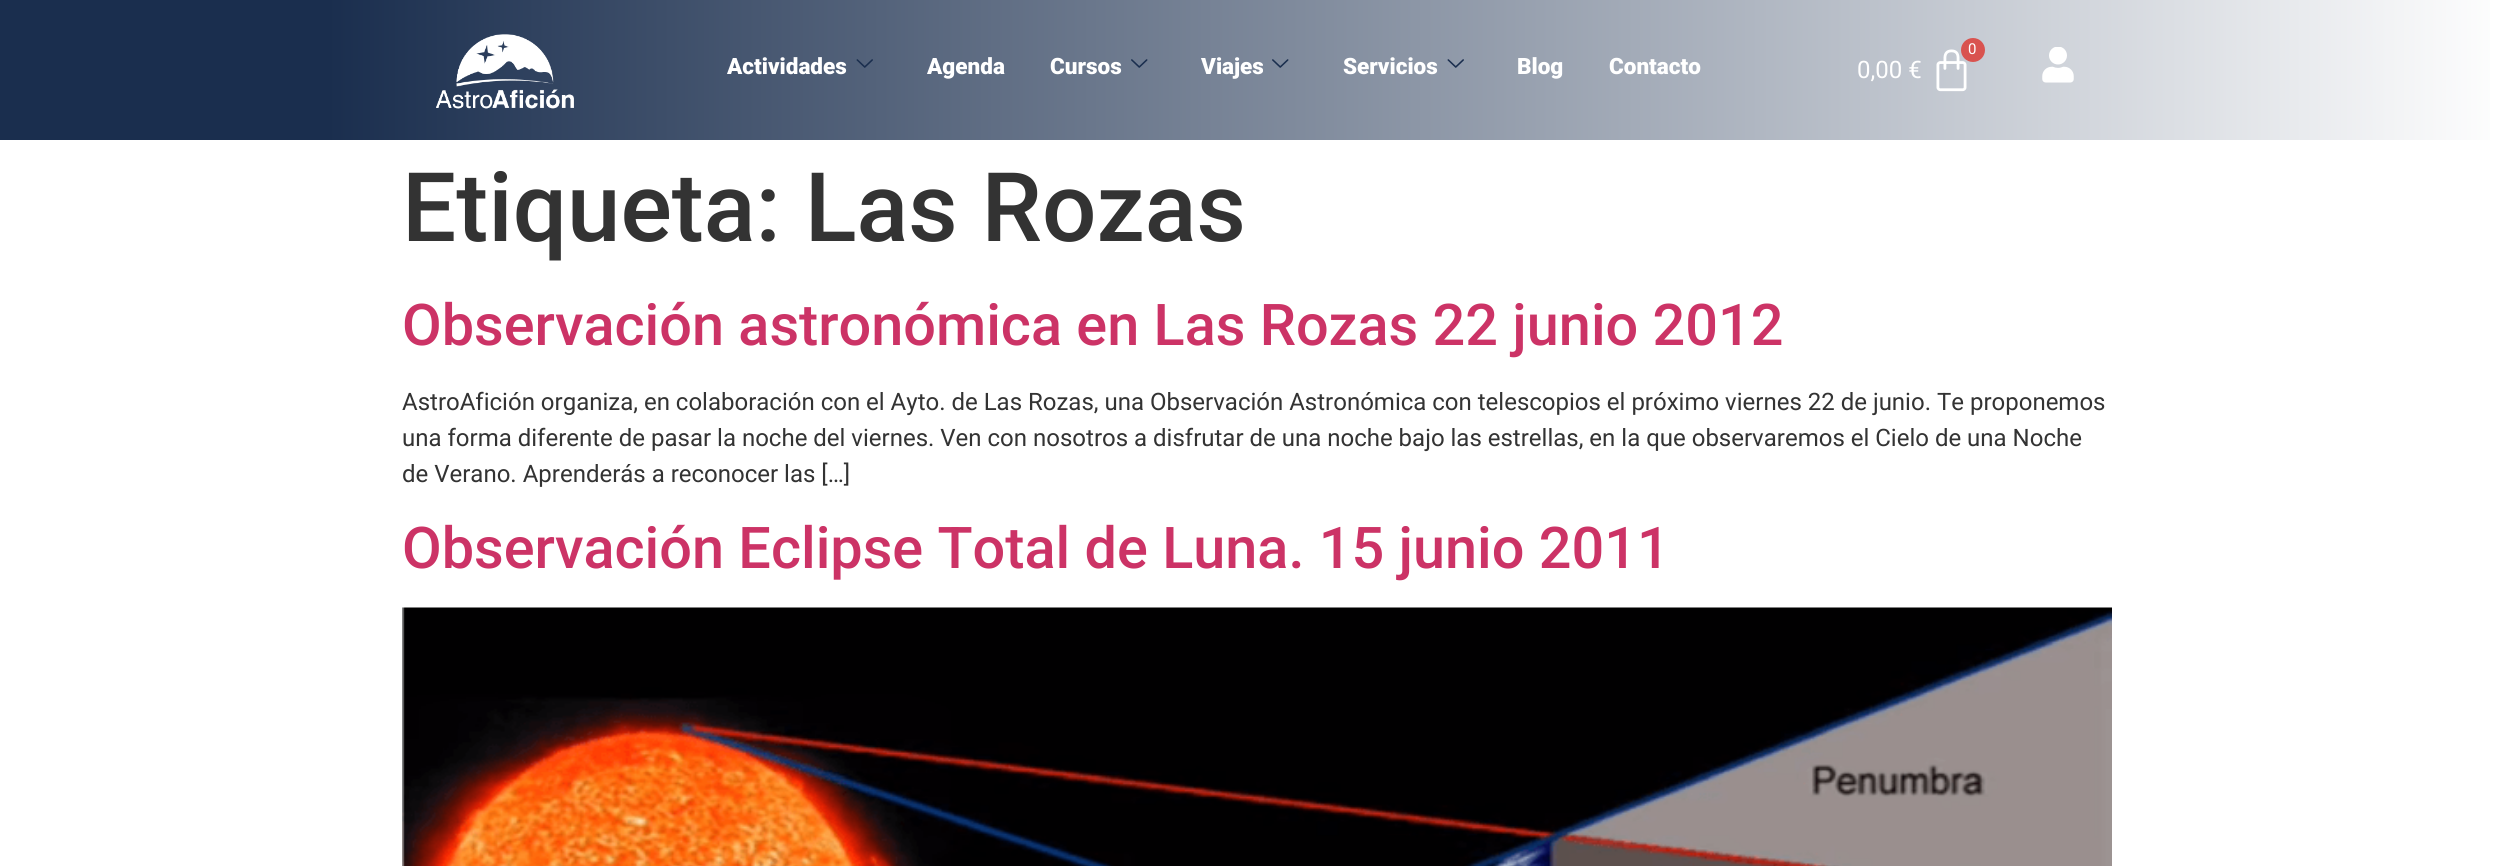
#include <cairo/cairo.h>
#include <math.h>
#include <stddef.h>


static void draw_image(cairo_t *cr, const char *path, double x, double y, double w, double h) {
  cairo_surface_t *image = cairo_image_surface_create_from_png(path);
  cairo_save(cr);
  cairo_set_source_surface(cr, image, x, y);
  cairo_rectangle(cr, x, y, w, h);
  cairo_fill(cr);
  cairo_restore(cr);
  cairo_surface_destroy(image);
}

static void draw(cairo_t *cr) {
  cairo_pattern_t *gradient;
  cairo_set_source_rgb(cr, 1, 1, 1);
  cairo_paint(cr);
  gradient = cairo_pattern_create_linear(0, 70, 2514, 70);
  cairo_pattern_add_color_stop_rgba(gradient, 0.13, 26 / 255.0, 46 / 255.0, 78 / 255.0, 1);
  cairo_pattern_add_color_stop_rgba(gradient, 1, 1, 1, 1, 1);
  cairo_set_source(cr, gradient);
  cairo_pattern_destroy(gradient);
  cairo_rectangle(cr, 0, 0, 2490, 140);
  cairo_fill(cr);
  draw_image(cr, "images/1.png", 436, 34, 138, 75);
  draw_image(cr, "images/2.png", 856, 59, 17, 9);
  draw_image(cr, "images/3.png", 1131, 59, 17, 9);
  draw_image(cr, "images/4.png", 1272, 59, 17, 9);
  draw_image(cr, "images/5.png", 1447, 59, 17, 9);
  draw_image(cr, "images/6.png", 1936, 49, 31, 43);
  cairo_set_source_rgb(cr, 217 / 255.0, 83 / 255.0, 79 / 255.0);
  cairo_arc(cr, 1973, 50, 12, 0, 2 * M_PI);
  cairo_fill(cr);
  draw_image(cr, "images/7.png", 2042, 47, 32, 36);
  draw_image(cr, "images/8.png", 402, 607, 1710, 259);
  cairo_select_font_face(cr, "Roboto Black", CAIRO_FONT_SLANT_NORMAL, CAIRO_FONT_WEIGHT_NORMAL);
  cairo_set_font_size(cr, 22.5);
  cairo_set_source_rgb(cr, 1, 1, 1);
  cairo_move_to(cr, 727, 74);
  cairo_show_text(cr, "Actividades");
  cairo_move_to(cr, 927, 74);
  cairo_show_text(cr, "Agenda");
  cairo_move_to(cr, 1050, 74);
  cairo_show_text(cr, "Cursos");
  cairo_move_to(cr, 1201, 74);
  cairo_show_text(cr, "Viajes");
  cairo_move_to(cr, 1343, 74);
  cairo_show_text(cr, "Servicios");
  cairo_move_to(cr, 1517, 74);
  cairo_show_text(cr, "Blog");
  cairo_move_to(cr, 1609, 74);
  cairo_show_text(cr, "Contacto");
  cairo_select_font_face(cr, "Roboto", CAIRO_FONT_SLANT_NORMAL, CAIRO_FONT_WEIGHT_NORMAL);
  cairo_set_font_size(cr, 15);
  cairo_move_to(cr, 1968, 54);
  cairo_show_text(cr, "0");
  cairo_set_font_size(cr, 24);
  cairo_move_to(cr, 1857, 78);
  cairo_show_text(cr, "0,00 €");
  cairo_select_font_face(cr, "Roboto Medium", CAIRO_FONT_SLANT_NORMAL, CAIRO_FONT_WEIGHT_NORMAL);
  cairo_set_font_size(cr, 96);
  cairo_set_source_rgb(cr, 51 / 255.0, 51 / 255.0, 51 / 255.0);
  cairo_move_to(cr, 402, 241);
  cairo_show_text(cr, "Etiqueta: Las Rozas");
  cairo_set_font_size(cr, 57.6);
  cairo_set_source_rgb(cr, 204 / 255.0, 51 / 255.0, 102 / 255.0);
  cairo_move_to(cr, 402, 345);
  cairo_show_text(cr, "Observación astronómica en Las Rozas 22 junio 2012");
  cairo_select_font_face(cr, "Roboto", CAIRO_FONT_SLANT_NORMAL, CAIRO_FONT_WEIGHT_NORMAL);
  cairo_set_font_size(cr, 24);
  cairo_set_source_rgb(cr, 51 / 255.0, 51 / 255.0, 51 / 255.0);
  cairo_move_to(cr, 402, 410);
  cairo_show_text(cr, "AstroAfición organiza, en colaboración con el Ayto. de Las Rozas, una Observación Astronómica con telescopios el próximo viernes 22 de junio. Te proponemos");
  cairo_move_to(cr, 402, 446);
  cairo_show_text(cr, "una forma diferente de pasar la noche del viernes. Ven con nosotros a disfrutar de una noche bajo las estrellas, en la que observaremos el Cielo de una Noche");
  cairo_move_to(cr, 402, 482);
  cairo_show_text(cr, "de Verano. Aprenderás a reconocer las […]");
  cairo_select_font_face(cr, "Roboto Medium", CAIRO_FONT_SLANT_NORMAL, CAIRO_FONT_WEIGHT_NORMAL);
  cairo_set_font_size(cr, 57.6);
  cairo_set_source_rgb(cr, 204 / 255.0, 51 / 255.0, 102 / 255.0);
  cairo_move_to(cr, 402, 568);
  cairo_show_text(cr, "Observación Eclipse Total de Luna. 15 junio 2011");
}

int main(void) {
  cairo_surface_t *surface = cairo_image_surface_create(CAIRO_FORMAT_RGB24, 2513, 866);
  cairo_t *cr = cairo_create(surface);
  cairo_font_options_t *options = cairo_font_options_create();
  cairo_font_options_set_hint_metrics(options, CAIRO_HINT_METRICS_OFF);
  cairo_font_options_set_hint_style(options, CAIRO_HINT_STYLE_NONE);
  cairo_set_font_options(cr, options);
  cairo_set_miter_limit(cr, 4);
  draw(cr);
  cairo_surface_write_to_png(surface, "out.png");
  cairo_font_options_destroy(options);
  cairo_destroy(cr);
  cairo_surface_destroy(surface);
  return 0;
}
